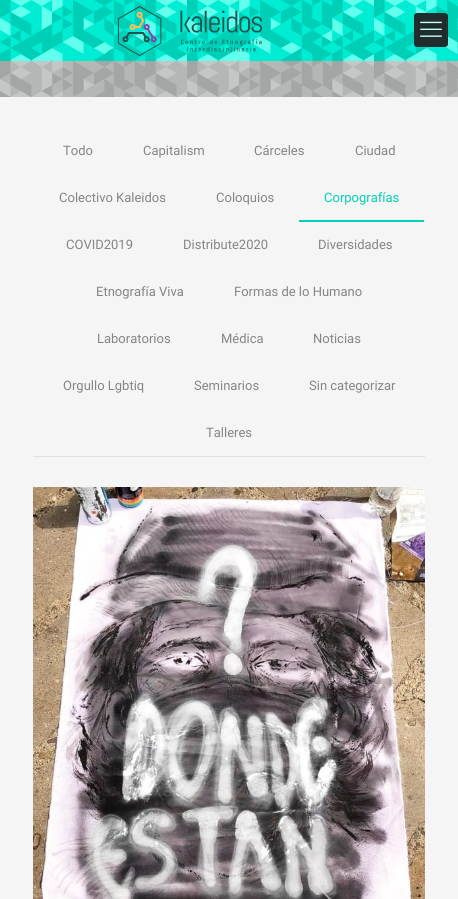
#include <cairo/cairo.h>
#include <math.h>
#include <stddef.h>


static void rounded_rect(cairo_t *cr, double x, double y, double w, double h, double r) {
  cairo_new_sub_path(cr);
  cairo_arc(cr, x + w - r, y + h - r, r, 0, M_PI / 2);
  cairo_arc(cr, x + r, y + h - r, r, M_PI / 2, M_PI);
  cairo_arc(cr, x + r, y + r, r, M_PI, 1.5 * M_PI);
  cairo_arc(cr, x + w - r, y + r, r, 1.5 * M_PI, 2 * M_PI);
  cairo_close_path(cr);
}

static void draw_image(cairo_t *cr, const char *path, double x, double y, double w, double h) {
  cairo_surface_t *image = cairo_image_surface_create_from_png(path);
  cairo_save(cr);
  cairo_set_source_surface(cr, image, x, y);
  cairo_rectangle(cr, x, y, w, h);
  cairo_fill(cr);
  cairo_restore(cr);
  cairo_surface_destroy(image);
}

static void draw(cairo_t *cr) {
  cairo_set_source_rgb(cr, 1, 1, 1);
  cairo_paint(cr);
  draw_image(cr, "images/1.png", 0, 0, 458, 61);
  draw_image(cr, "images/2.png", 117, 6, 145, 50);
  cairo_set_source_rgb(cr, 32 / 255.0, 45 / 255.0, 44 / 255.0);
  rounded_rect(cr, 414, 13, 34, 34, 3);
  cairo_fill(cr);
  draw_image(cr, "images/3.png", 420, 21, 22, 16);
  draw_image(cr, "images/4.png", 0, 61, 458, 36);
  cairo_set_source_rgb(cr, 244 / 255.0, 245 / 255.0, 244 / 255.0);
  cairo_rectangle(cr, 0, 97, 458, 802);
  cairo_fill(cr);
  cairo_set_source_rgb(cr, 224 / 255.0, 225 / 255.0, 224 / 255.0);
  cairo_rectangle(cr, 33, 456, 392, 1);
  cairo_fill(cr);
  cairo_set_source_rgb(cr, 0, 209 / 255.0, 184 / 255.0);
  cairo_rectangle(cr, 299, 220, 125, 2);
  cairo_fill(cr);
  draw_image(cr, "images/5.png", 33, 487, 392, 412);
  cairo_select_font_face(cr, "Roboto", CAIRO_FONT_SLANT_NORMAL, CAIRO_FONT_WEIGHT_NORMAL);
  cairo_set_font_size(cr, 13);
  cairo_set_source_rgb(cr, 133 / 255.0, 133 / 255.0, 133 / 255.0);
  cairo_move_to(cr, 63, 155);
  cairo_show_text(cr, "Todo");
  cairo_move_to(cr, 143, 155);
  cairo_show_text(cr, "Capitalism");
  cairo_move_to(cr, 254, 155);
  cairo_show_text(cr, "Cárceles");
  cairo_move_to(cr, 355, 155);
  cairo_show_text(cr, "Ciudad");
  cairo_move_to(cr, 59, 202);
  cairo_show_text(cr, "Colectivo Kaleidos");
  cairo_move_to(cr, 216, 202);
  cairo_show_text(cr, "Coloquios");
  cairo_set_source_rgb(cr, 0, 209 / 255.0, 184 / 255.0);
  cairo_move_to(cr, 324, 202);
  cairo_show_text(cr, "Corpografías");
  cairo_set_source_rgb(cr, 133 / 255.0, 133 / 255.0, 133 / 255.0);
  cairo_move_to(cr, 66, 249);
  cairo_show_text(cr, "COVID2019");
  cairo_move_to(cr, 183, 249);
  cairo_show_text(cr, "Distribute2020");
  cairo_move_to(cr, 318, 249);
  cairo_show_text(cr, "Diversidades");
  cairo_move_to(cr, 96, 296);
  cairo_show_text(cr, "Etnografía Viva");
  cairo_move_to(cr, 234, 296);
  cairo_show_text(cr, "Formas de lo Humano");
  cairo_move_to(cr, 97, 343);
  cairo_show_text(cr, "Laboratorios");
  cairo_move_to(cr, 221, 343);
  cairo_show_text(cr, "Médica");
  cairo_move_to(cr, 313, 343);
  cairo_show_text(cr, "Noticias");
  cairo_move_to(cr, 63, 390);
  cairo_show_text(cr, "Orgullo Lgbtiq");
  cairo_move_to(cr, 194, 390);
  cairo_show_text(cr, "Seminarios");
  cairo_move_to(cr, 309, 390);
  cairo_show_text(cr, "Sin categorizar");
  cairo_move_to(cr, 206, 437);
  cairo_show_text(cr, "Talleres");
}

int main(void) {
  cairo_surface_t *surface = cairo_image_surface_create(CAIRO_FORMAT_RGB24, 458, 899);
  cairo_t *cr = cairo_create(surface);
  cairo_font_options_t *options = cairo_font_options_create();
  cairo_font_options_set_hint_metrics(options, CAIRO_HINT_METRICS_OFF);
  cairo_font_options_set_hint_style(options, CAIRO_HINT_STYLE_NONE);
  cairo_set_font_options(cr, options);
  cairo_set_miter_limit(cr, 4);
  draw(cr);
  cairo_surface_write_to_png(surface, "out.png");
  cairo_font_options_destroy(options);
  cairo_destroy(cr);
  cairo_surface_destroy(surface);
  return 0;
}
